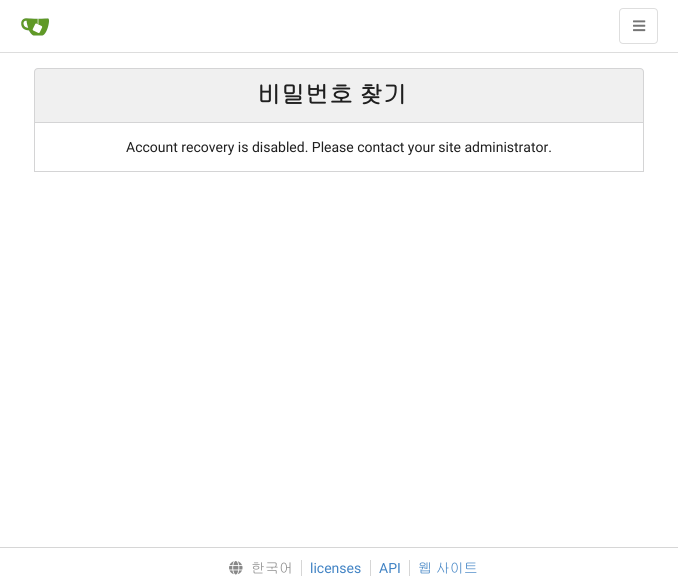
#include <cairo/cairo.h>
#include <math.h>
#include <stddef.h>


static void draw_spaced(cairo_t *cr, double x, double y, const char *s, double letter, double word) {
  cairo_move_to(cr, x, y);
  while (*s) {
    char ch[5] = {0};
    int n = 0;
    do ch[n++] = *s++; while ((*s & 0xC0) == 0x80);
    cairo_show_text(cr, ch);
    cairo_rel_move_to(cr, letter + word * (*ch == ' '), 0);
  }
}

static void rounded_rect(cairo_t *cr, double x, double y, double w, double h, double r) {
  cairo_new_sub_path(cr);
  cairo_arc(cr, x + w - r, y + h - r, r, 0, M_PI / 2);
  cairo_arc(cr, x + r, y + h - r, r, M_PI / 2, M_PI);
  cairo_arc(cr, x + r, y + r, r, M_PI, 1.5 * M_PI);
  cairo_arc(cr, x + w - r, y + r, r, 1.5 * M_PI, 2 * M_PI);
  cairo_close_path(cr);
}

static void draw_image(cairo_t *cr, const char *path, double x, double y, double w, double h) {
  cairo_surface_t *image = cairo_image_surface_create_from_png(path);
  cairo_save(cr);
  cairo_set_source_surface(cr, image, x, y);
  cairo_rectangle(cr, x, y, w, h);
  cairo_fill(cr);
  cairo_restore(cr);
  cairo_surface_destroy(image);
}

static void draw(cairo_t *cr) {
  cairo_set_source_rgb(cr, 1, 1, 1);
  cairo_paint(cr);
  cairo_set_source_rgb(cr, 221 / 255.0, 221 / 255.0, 221 / 255.0);
  cairo_rectangle(cr, 0, 52, 678, 1);
  cairo_fill(cr);
  draw_image(cr, "images/1.png", 21, 18, 28, 18);
  rounded_rect(cr, 619.5, 8.5, 38, 35, 3.5);
  cairo_set_source_rgb(cr, 222 / 255.0, 222 / 255.0, 222 / 255.0);
  cairo_set_line_width(cr, 1);
  cairo_stroke(cr);
  draw_image(cr, "images/2.png", 633, 20, 13, 12);
  cairo_set_source_rgb(cr, 240 / 255.0, 240 / 255.0, 240 / 255.0);
  cairo_new_path(cr);
  cairo_move_to(cr, 38, 68.5);
  cairo_line_to(cr, 640, 68.5);
  cairo_curve_to(cr, 642, 68.5, 643.5, 70, 643.5, 72);
  cairo_line_to(cr, 643.5, 122.5);
  cairo_line_to(cr, 34.5, 122.5);
  cairo_line_to(cr, 34.5, 72);
  cairo_curve_to(cr, 34.5, 70, 36, 68.5, 38, 68.5);
  cairo_close_path(cr);
  cairo_fill_preserve(cr);
  cairo_set_source_rgb(cr, 212 / 255.0, 212 / 255.0, 213 / 255.0);
  cairo_stroke(cr);
  cairo_rectangle(cr, 643, 123, 1, 49);
  cairo_fill(cr);
  cairo_rectangle(cr, 34, 171, 610, 1);
  cairo_fill(cr);
  cairo_rectangle(cr, 34, 123, 1, 49);
  cairo_fill(cr);
  cairo_set_source_rgb(cr, 214 / 255.0, 214 / 255.0, 214 / 255.0);
  cairo_rectangle(cr, 0, 547, 678, 1);
  cairo_fill(cr);
  draw_image(cr, "images/3.png", 229, 561, 14, 14);
  cairo_rectangle(cr, 301, 560, 1, 16);
  cairo_fill(cr);
  cairo_rectangle(cr, 370, 560, 1, 16);
  cairo_fill(cr);
  cairo_rectangle(cr, 409, 560, 1, 16);
  cairo_fill(cr);
  cairo_select_font_face(cr, "Gulim", CAIRO_FONT_SLANT_NORMAL, CAIRO_FONT_WEIGHT_BOLD);
  cairo_set_font_size(cr, 24);
  cairo_set_source_rgb(cr, 31 / 255.0, 31 / 255.0, 31 / 255.0);
  draw_spaced(cr, 257, 103, "비밀번호 찾기", 0, -2);
  cairo_select_font_face(cr, "Roboto", CAIRO_FONT_SLANT_NORMAL, CAIRO_FONT_WEIGHT_NORMAL);
  cairo_set_font_size(cr, 14);
  cairo_move_to(cr, 126, 152);
  cairo_show_text(cr, "Account recovery is disabled. Please contact your site administrator.");
  cairo_select_font_face(cr, "Gulim", CAIRO_FONT_SLANT_NORMAL, CAIRO_FONT_WEIGHT_NORMAL);
  cairo_set_source_rgb(cr, 136 / 255.0, 136 / 255.0, 136 / 255.0);
  cairo_move_to(cr, 251, 573);
  cairo_show_text(cr, "한국어");
  cairo_select_font_face(cr, "Roboto", CAIRO_FONT_SLANT_NORMAL, CAIRO_FONT_WEIGHT_NORMAL);
  cairo_set_source_rgb(cr, 65 / 255.0, 131 / 255.0, 196 / 255.0);
  cairo_move_to(cr, 310, 573);
  cairo_show_text(cr, "licenses");
  cairo_move_to(cr, 379, 573);
  cairo_show_text(cr, "API");
  cairo_select_font_face(cr, "Gulim", CAIRO_FONT_SLANT_NORMAL, CAIRO_FONT_WEIGHT_NORMAL);
  draw_spaced(cr, 418, 573, "웹 사이트", 0, -1);
}

int main(void) {
  cairo_surface_t *surface = cairo_image_surface_create(CAIRO_FORMAT_RGB24, 678, 588);
  cairo_t *cr = cairo_create(surface);
  cairo_font_options_t *options = cairo_font_options_create();
  cairo_font_options_set_hint_metrics(options, CAIRO_HINT_METRICS_OFF);
  cairo_font_options_set_hint_style(options, CAIRO_HINT_STYLE_NONE);
  cairo_set_font_options(cr, options);
  cairo_set_miter_limit(cr, 4);
  draw(cr);
  cairo_surface_write_to_png(surface, "out.png");
  cairo_font_options_destroy(options);
  cairo_destroy(cr);
  cairo_surface_destroy(surface);
  return 0;
}
